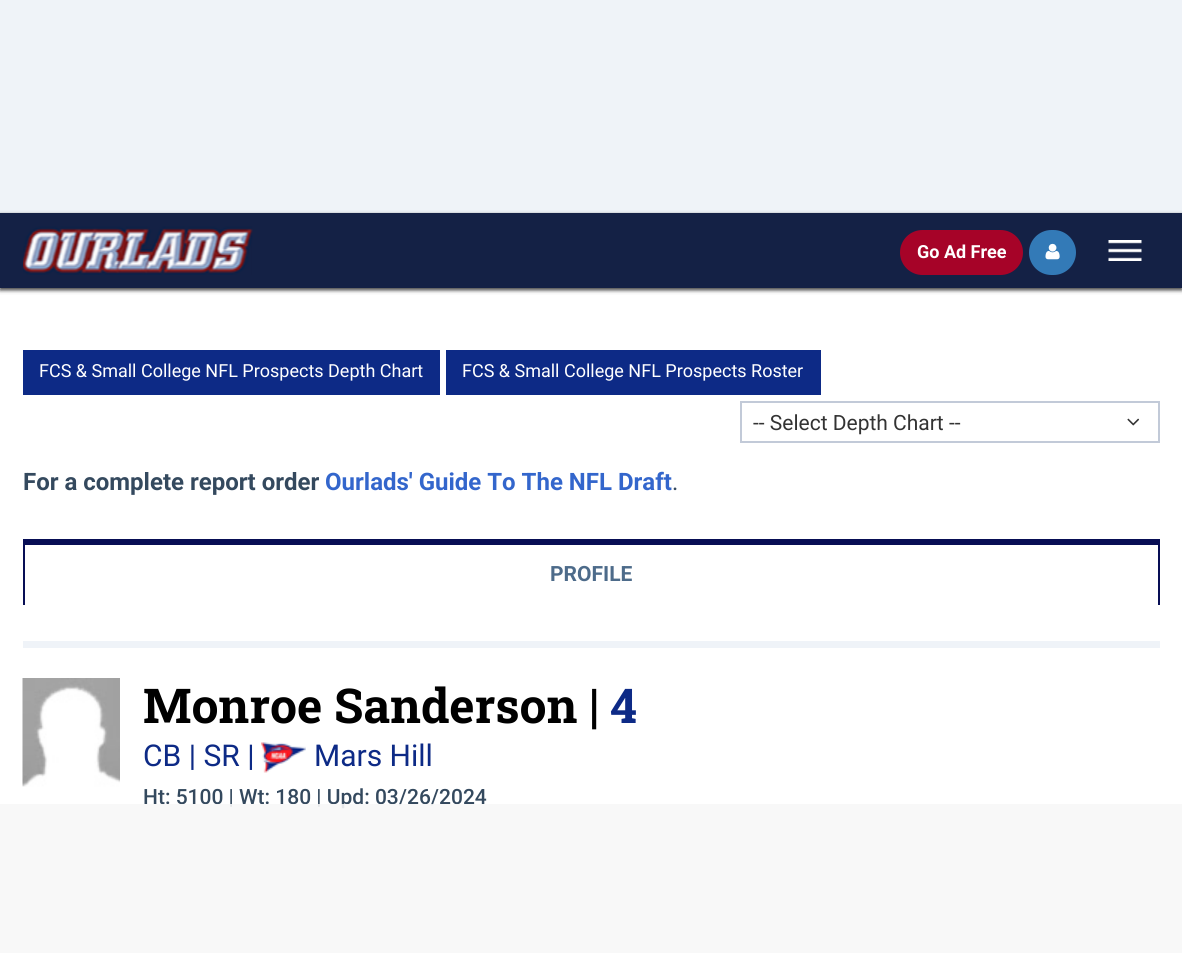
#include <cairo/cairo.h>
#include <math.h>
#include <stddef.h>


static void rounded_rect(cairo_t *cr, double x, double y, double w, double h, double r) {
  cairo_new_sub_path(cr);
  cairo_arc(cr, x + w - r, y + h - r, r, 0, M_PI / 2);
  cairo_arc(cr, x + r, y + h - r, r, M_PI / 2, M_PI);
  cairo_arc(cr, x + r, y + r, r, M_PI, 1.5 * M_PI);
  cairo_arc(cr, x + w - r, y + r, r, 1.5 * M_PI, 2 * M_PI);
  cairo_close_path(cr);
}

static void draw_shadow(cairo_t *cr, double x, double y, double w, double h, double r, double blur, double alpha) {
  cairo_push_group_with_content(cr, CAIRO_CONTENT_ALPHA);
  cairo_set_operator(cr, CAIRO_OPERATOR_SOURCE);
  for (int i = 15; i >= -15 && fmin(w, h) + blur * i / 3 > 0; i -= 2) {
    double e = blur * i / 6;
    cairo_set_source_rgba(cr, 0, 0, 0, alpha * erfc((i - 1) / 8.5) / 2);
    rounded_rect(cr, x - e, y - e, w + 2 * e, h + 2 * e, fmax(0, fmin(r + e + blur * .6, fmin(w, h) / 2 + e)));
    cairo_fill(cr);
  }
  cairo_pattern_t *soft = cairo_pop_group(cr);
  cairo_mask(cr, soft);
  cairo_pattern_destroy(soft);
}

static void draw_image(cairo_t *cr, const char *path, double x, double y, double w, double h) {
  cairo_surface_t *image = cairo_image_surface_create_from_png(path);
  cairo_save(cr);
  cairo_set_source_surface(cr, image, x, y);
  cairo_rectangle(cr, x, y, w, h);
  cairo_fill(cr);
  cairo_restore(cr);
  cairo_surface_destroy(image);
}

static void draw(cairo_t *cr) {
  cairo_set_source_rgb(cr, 239 / 255.0, 243 / 255.0, 248 / 255.0);
  cairo_paint(cr);
  cairo_set_source_rgb(cr, 1, 1, 1);
  cairo_rectangle(cr, 0, 288, 1182, 665);
  cairo_fill(cr);
  cairo_set_source_rgb(cr, 0, 0, 0);
  draw_shadow(cr, 0, 215, 1182, 75, 0, 2, 0.47);
  cairo_set_source_rgb(cr, 20 / 255.0, 33 / 255.0, 69 / 255.0);
  cairo_rectangle(cr, 0, 213, 1182, 75);
  cairo_fill(cr);
  cairo_save(cr);
  cairo_set_fill_rule(cr, CAIRO_FILL_RULE_EVEN_ODD);
  cairo_new_path(cr);
  cairo_move_to(cr, 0, 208);
  cairo_line_to(cr, 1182, 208);
  cairo_line_to(cr, 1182, 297);
  cairo_line_to(cr, 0, 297);
  cairo_close_path(cr);
  cairo_move_to(cr, 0, 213);
  cairo_line_to(cr, 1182, 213);
  cairo_line_to(cr, 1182, 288);
  cairo_line_to(cr, 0, 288);
  cairo_close_path(cr);
  cairo_clip(cr);
  cairo_set_source_rgb(cr, 0, 0, 0);
  draw_shadow(cr, 0, 215, 1182, 75, 0, 2, 0.47);
  cairo_restore(cr);
  draw_image(cr, "images/1.png", 23, 226, 230, 49);
  cairo_set_source_rgb(cr, 166 / 255.0, 3 / 255.0, 40 / 255.0);
  rounded_rect(cr, 901, 231, 121, 43, 21.5);
  cairo_fill_preserve(cr);
  cairo_stroke(cr);
  cairo_set_source_rgb(cr, 51 / 255.0, 122 / 255.0, 183 / 255.0);
  rounded_rect(cr, 1030, 231, 45, 43, 21.5);
  cairo_fill_preserve(cr);
  cairo_stroke(cr);
  draw_image(cr, "images/2.png", 1045, 243, 15, 17);
  draw_image(cr, "images/3.png", 1108, 240, 34, 21);
  cairo_set_source_rgb(cr, 13 / 255.0, 42 / 255.0, 134 / 255.0);
  cairo_rectangle(cr, 23, 350, 417, 45);
  cairo_fill(cr);
  cairo_rectangle(cr, 446, 350, 375, 45);
  cairo_fill(cr);
  cairo_rectangle(cr, 741, 402, 418, 40);
  cairo_set_source_rgb(cr, 194 / 255.0, 202 / 255.0, 216 / 255.0);
  cairo_stroke(cr);
  draw_image(cr, "images/4.png", 1127, 418, 13, 8);
  cairo_set_source_rgb(cr, 8 / 255.0, 14 / 255.0, 85 / 255.0);
  cairo_rectangle(cr, 23, 539, 1137, 6);
  cairo_fill(cr);
  cairo_rectangle(cr, 1158, 545, 2, 60);
  cairo_fill(cr);
  cairo_rectangle(cr, 23, 545, 2, 60);
  cairo_fill(cr);
  cairo_set_source_rgb(cr, 239 / 255.0, 243 / 255.0, 248 / 255.0);
  cairo_rectangle(cr, 23, 641, 1137, 7);
  cairo_fill(cr);
  draw_image(cr, "images/5.png", 22, 678, 98, 109);
  draw_image(cr, "images/6.png", 261, 742, 45, 31);
  cairo_select_font_face(cr, "Roboto", CAIRO_FONT_SLANT_NORMAL, CAIRO_FONT_WEIGHT_BOLD);
  cairo_set_font_size(cr, 18);
  cairo_set_source_rgb(cr, 1, 1, 1);
  cairo_move_to(cr, 917, 258);
  cairo_show_text(cr, "Go Ad Free");
  cairo_select_font_face(cr, "Roboto", CAIRO_FONT_SLANT_NORMAL, CAIRO_FONT_WEIGHT_NORMAL);
  cairo_move_to(cr, 39, 377);
  cairo_show_text(cr, "FCS & Small College NFL Prospects Depth Chart");
  cairo_move_to(cr, 462, 377);
  cairo_show_text(cr, "FCS & Small College NFL Prospects Roster");
  cairo_set_font_size(cr, 21);
  cairo_set_source_rgb(cr, 51 / 255.0, 51 / 255.0, 51 / 255.0);
  cairo_move_to(cr, 753, 430);
  cairo_show_text(cr, "-- Select Depth Chart --");
  cairo_select_font_face(cr, "Roboto", CAIRO_FONT_SLANT_NORMAL, CAIRO_FONT_WEIGHT_BOLD);
  cairo_set_font_size(cr, 24);
  cairo_set_source_rgb(cr, 52 / 255.0, 73 / 255.0, 94 / 255.0);
  cairo_move_to(cr, 23, 490);
  cairo_show_text(cr, "For a complete report order");
  cairo_set_source_rgb(cr, 51 / 255.0, 102 / 255.0, 204 / 255.0);
  cairo_move_to(cr, 325, 490);
  cairo_show_text(cr, "Ourlads' Guide To The NFL Draft");
  cairo_select_font_face(cr, "Roboto", CAIRO_FONT_SLANT_NORMAL, CAIRO_FONT_WEIGHT_NORMAL);
  cairo_set_source_rgb(cr, 52 / 255.0, 73 / 255.0, 94 / 255.0);
  cairo_move_to(cr, 672, 490);
  cairo_show_text(cr, ".");
  cairo_select_font_face(cr, "Roboto", CAIRO_FONT_SLANT_NORMAL, CAIRO_FONT_WEIGHT_BOLD);
  cairo_set_font_size(cr, 21);
  cairo_set_source_rgb(cr, 77 / 255.0, 107 / 255.0, 138 / 255.0);
  cairo_move_to(cr, 550, 581);
  cairo_show_text(cr, "PROFILE");
  cairo_select_font_face(cr, "Roboto Slab", CAIRO_FONT_SLANT_NORMAL, CAIRO_FONT_WEIGHT_BOLD);
  cairo_set_font_size(cr, 48);
  cairo_set_source_rgb(cr, 0, 0, 0);
  cairo_move_to(cr, 143, 723);
  cairo_show_text(cr, "Monroe Sanderson |");
  cairo_set_source_rgb(cr, 13 / 255.0, 42 / 255.0, 134 / 255.0);
  cairo_move_to(cr, 610, 723);
  cairo_show_text(cr, "4");
  cairo_select_font_face(cr, "Roboto", CAIRO_FONT_SLANT_NORMAL, CAIRO_FONT_WEIGHT_NORMAL);
  cairo_set_font_size(cr, 30);
  cairo_move_to(cr, 143, 766);
  cairo_show_text(cr, "CB | SR |");
  cairo_move_to(cr, 314, 766);
  cairo_show_text(cr, "Mars Hill");
  cairo_select_font_face(cr, "Roboto Medium", CAIRO_FONT_SLANT_NORMAL, CAIRO_FONT_WEIGHT_NORMAL);
  cairo_set_font_size(cr, 21);
  cairo_set_source_rgb(cr, 52 / 255.0, 73 / 255.0, 94 / 255.0);
  cairo_move_to(cr, 143, 804);
  cairo_show_text(cr, "Ht: 5100 | Wt: 180 | Upd: 03/26/2024");
  cairo_set_source_rgba(cr, 247 / 255.0, 247 / 255.0, 247 / 255.0, 0.9);
  cairo_rectangle(cr, 0, 804, 1182, 149);
  cairo_fill(cr);
}

int main(void) {
  cairo_surface_t *surface = cairo_image_surface_create(CAIRO_FORMAT_RGB24, 1182, 953);
  cairo_t *cr = cairo_create(surface);
  cairo_font_options_t *options = cairo_font_options_create();
  cairo_font_options_set_hint_metrics(options, CAIRO_HINT_METRICS_OFF);
  cairo_font_options_set_hint_style(options, CAIRO_HINT_STYLE_NONE);
  cairo_set_font_options(cr, options);
  cairo_set_miter_limit(cr, 4);
  draw(cr);
  cairo_surface_write_to_png(surface, "out.png");
  cairo_font_options_destroy(options);
  cairo_destroy(cr);
  cairo_surface_destroy(surface);
  return 0;
}
